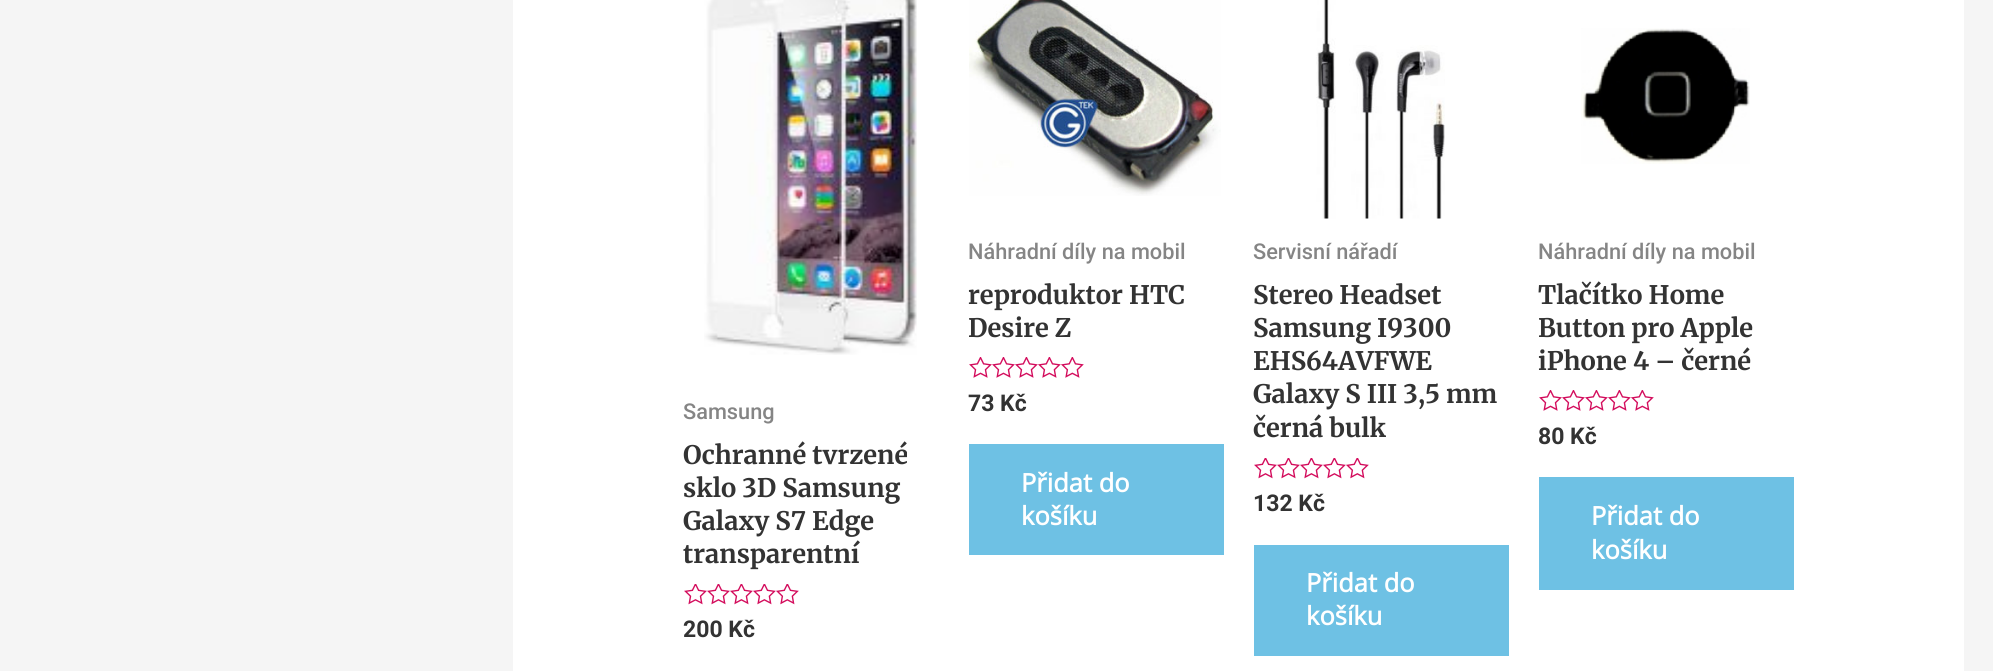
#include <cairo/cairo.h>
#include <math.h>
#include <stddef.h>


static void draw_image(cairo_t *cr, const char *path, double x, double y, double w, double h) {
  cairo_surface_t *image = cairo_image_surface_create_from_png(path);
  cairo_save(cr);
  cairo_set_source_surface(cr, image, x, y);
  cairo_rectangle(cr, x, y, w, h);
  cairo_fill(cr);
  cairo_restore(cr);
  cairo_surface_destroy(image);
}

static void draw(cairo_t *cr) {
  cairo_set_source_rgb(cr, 245 / 255.0, 245 / 255.0, 245 / 255.0);
  cairo_paint(cr);
  cairo_set_source_rgb(cr, 1, 1, 1);
  cairo_rectangle(cr, 513, 0, 1451, 671);
  cairo_fill(cr);
  draw_image(cr, "images/1.png", 704, 0, 213, 355);
  draw_image(cr, "images/2.png", 684, 584, 115, 21);
  draw_image(cr, "images/3.png", 969, 0, 252, 196);
  draw_image(cr, "images/4.png", 969, 357, 115, 21);
  cairo_set_source_rgb(cr, 110 / 255.0, 193 / 255.0, 228 / 255.0);
  cairo_rectangle(cr, 969, 444, 255, 111);
  cairo_fill(cr);
  draw_image(cr, "images/5.png", 1316, 0, 129, 219);
  draw_image(cr, "images/2.png", 1254, 458, 115, 21);
  cairo_rectangle(cr, 1254, 545, 255, 111);
  cairo_fill(cr);
  draw_image(cr, "images/6.png", 1581, 28, 169, 136);
  draw_image(cr, "images/4.png", 1539, 390, 115, 21);
  cairo_rectangle(cr, 1539, 477, 255, 113);
  cairo_fill(cr);
  cairo_select_font_face(cr, "Roboto Medium", CAIRO_FONT_SLANT_NORMAL, CAIRO_FONT_WEIGHT_NORMAL);
  cairo_set_font_size(cr, 21.75);
  cairo_set_source_rgb(cr, 133 / 255.0, 133 / 255.0, 133 / 255.0);
  cairo_move_to(cr, 683, 419);
  cairo_show_text(cr, "Samsung");
  cairo_select_font_face(cr, "Merriweather Light", CAIRO_FONT_SLANT_NORMAL, CAIRO_FONT_WEIGHT_NORMAL);
  cairo_set_font_size(cr, 25.5);
  cairo_set_source_rgb(cr, 51 / 255.0, 51 / 255.0, 51 / 255.0);
  cairo_move_to(cr, 683, 464);
  cairo_show_text(cr, "Ochranné tvrzené");
  cairo_move_to(cr, 683, 497);
  cairo_show_text(cr, "sklo 3D Samsung");
  cairo_move_to(cr, 683, 530);
  cairo_show_text(cr, "Galaxy S7 Edge");
  cairo_move_to(cr, 683, 563);
  cairo_show_text(cr, "transparentní");
  cairo_select_font_face(cr, "Roboto", CAIRO_FONT_SLANT_NORMAL, CAIRO_FONT_WEIGHT_BOLD);
  cairo_set_font_size(cr, 23);
  cairo_move_to(cr, 683, 637);
  cairo_show_text(cr, "200 Kč");
  cairo_select_font_face(cr, "Roboto Medium", CAIRO_FONT_SLANT_NORMAL, CAIRO_FONT_WEIGHT_NORMAL);
  cairo_set_font_size(cr, 21.75);
  cairo_set_source_rgb(cr, 133 / 255.0, 133 / 255.0, 133 / 255.0);
  cairo_move_to(cr, 968, 259);
  cairo_show_text(cr, "Náhradní díly na mobil");
  cairo_select_font_face(cr, "Merriweather Light", CAIRO_FONT_SLANT_NORMAL, CAIRO_FONT_WEIGHT_NORMAL);
  cairo_set_font_size(cr, 25.5);
  cairo_set_source_rgb(cr, 51 / 255.0, 51 / 255.0, 51 / 255.0);
  cairo_move_to(cr, 968, 304);
  cairo_show_text(cr, "reproduktor HTC");
  cairo_move_to(cr, 968, 337);
  cairo_show_text(cr, "Desire Z");
  cairo_select_font_face(cr, "Roboto", CAIRO_FONT_SLANT_NORMAL, CAIRO_FONT_WEIGHT_BOLD);
  cairo_set_font_size(cr, 23);
  cairo_move_to(cr, 968, 411);
  cairo_show_text(cr, "73 Kč");
  cairo_select_font_face(cr, "Open Sans", CAIRO_FONT_SLANT_NORMAL, CAIRO_FONT_WEIGHT_BOLD);
  cairo_set_font_size(cr, 25.5);
  cairo_set_source_rgb(cr, 1, 1, 1);
  cairo_move_to(cr, 1021, 492);
  cairo_show_text(cr, "Přidat do");
  cairo_move_to(cr, 1021, 525);
  cairo_show_text(cr, "košíku");
  cairo_select_font_face(cr, "Roboto Medium", CAIRO_FONT_SLANT_NORMAL, CAIRO_FONT_WEIGHT_NORMAL);
  cairo_set_font_size(cr, 21.75);
  cairo_set_source_rgb(cr, 133 / 255.0, 133 / 255.0, 133 / 255.0);
  cairo_move_to(cr, 1253, 259);
  cairo_show_text(cr, "Servisní nářadí");
  cairo_select_font_face(cr, "Merriweather Light", CAIRO_FONT_SLANT_NORMAL, CAIRO_FONT_WEIGHT_NORMAL);
  cairo_set_font_size(cr, 25.5);
  cairo_set_source_rgb(cr, 51 / 255.0, 51 / 255.0, 51 / 255.0);
  cairo_move_to(cr, 1253, 304);
  cairo_show_text(cr, "Stereo Headset");
  cairo_move_to(cr, 1253, 337);
  cairo_show_text(cr, "Samsung I9300");
  cairo_move_to(cr, 1253, 370);
  cairo_show_text(cr, "EHS64AVFWE");
  cairo_move_to(cr, 1253, 403);
  cairo_show_text(cr, "Galaxy S III 3,5 mm");
  cairo_move_to(cr, 1253, 437);
  cairo_show_text(cr, "černá bulk");
  cairo_select_font_face(cr, "Roboto", CAIRO_FONT_SLANT_NORMAL, CAIRO_FONT_WEIGHT_BOLD);
  cairo_set_font_size(cr, 23);
  cairo_move_to(cr, 1253, 511);
  cairo_show_text(cr, "132 Kč");
  cairo_select_font_face(cr, "Open Sans", CAIRO_FONT_SLANT_NORMAL, CAIRO_FONT_WEIGHT_BOLD);
  cairo_set_font_size(cr, 25.5);
  cairo_set_source_rgb(cr, 1, 1, 1);
  cairo_move_to(cr, 1306, 592);
  cairo_show_text(cr, "Přidat do");
  cairo_move_to(cr, 1306, 625);
  cairo_show_text(cr, "košíku");
  cairo_select_font_face(cr, "Roboto Medium", CAIRO_FONT_SLANT_NORMAL, CAIRO_FONT_WEIGHT_NORMAL);
  cairo_set_font_size(cr, 21.75);
  cairo_set_source_rgb(cr, 133 / 255.0, 133 / 255.0, 133 / 255.0);
  cairo_move_to(cr, 1538, 259);
  cairo_show_text(cr, "Náhradní díly na mobil");
  cairo_select_font_face(cr, "Merriweather Light", CAIRO_FONT_SLANT_NORMAL, CAIRO_FONT_WEIGHT_NORMAL);
  cairo_set_font_size(cr, 25.5);
  cairo_set_source_rgb(cr, 51 / 255.0, 51 / 255.0, 51 / 255.0);
  cairo_move_to(cr, 1538, 304);
  cairo_show_text(cr, "Tlačítko Home");
  cairo_move_to(cr, 1538, 337);
  cairo_show_text(cr, "Button pro Apple");
  cairo_move_to(cr, 1538, 370);
  cairo_show_text(cr, "iPhone 4 – černé");
  cairo_select_font_face(cr, "Roboto", CAIRO_FONT_SLANT_NORMAL, CAIRO_FONT_WEIGHT_BOLD);
  cairo_set_font_size(cr, 23);
  cairo_move_to(cr, 1538, 444);
  cairo_show_text(cr, "80 Kč");
  cairo_select_font_face(cr, "Open Sans", CAIRO_FONT_SLANT_NORMAL, CAIRO_FONT_WEIGHT_BOLD);
  cairo_set_font_size(cr, 25.5);
  cairo_set_source_rgb(cr, 1, 1, 1);
  cairo_move_to(cr, 1591, 525);
  cairo_show_text(cr, "Přidat do");
  cairo_move_to(cr, 1591, 559);
  cairo_show_text(cr, "košíku");
}

int main(void) {
  cairo_surface_t *surface = cairo_image_surface_create(CAIRO_FORMAT_RGB24, 1993, 671);
  cairo_t *cr = cairo_create(surface);
  cairo_font_options_t *options = cairo_font_options_create();
  cairo_font_options_set_hint_metrics(options, CAIRO_HINT_METRICS_OFF);
  cairo_font_options_set_hint_style(options, CAIRO_HINT_STYLE_NONE);
  cairo_set_font_options(cr, options);
  cairo_set_miter_limit(cr, 4);
  draw(cr);
  cairo_surface_write_to_png(surface, "out.png");
  cairo_font_options_destroy(options);
  cairo_destroy(cr);
  cairo_surface_destroy(surface);
  return 0;
}
